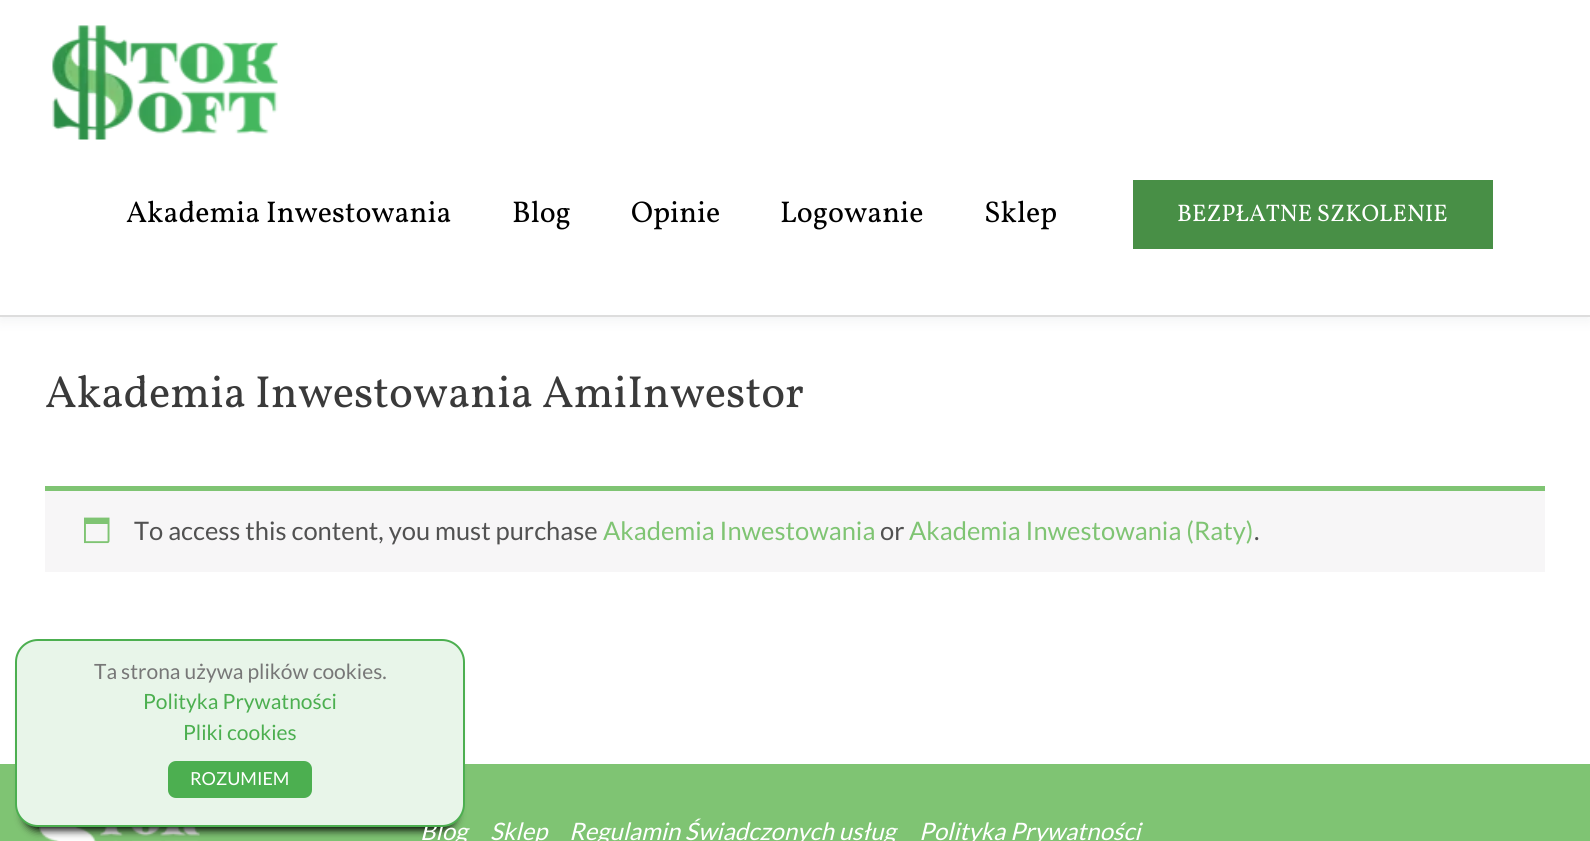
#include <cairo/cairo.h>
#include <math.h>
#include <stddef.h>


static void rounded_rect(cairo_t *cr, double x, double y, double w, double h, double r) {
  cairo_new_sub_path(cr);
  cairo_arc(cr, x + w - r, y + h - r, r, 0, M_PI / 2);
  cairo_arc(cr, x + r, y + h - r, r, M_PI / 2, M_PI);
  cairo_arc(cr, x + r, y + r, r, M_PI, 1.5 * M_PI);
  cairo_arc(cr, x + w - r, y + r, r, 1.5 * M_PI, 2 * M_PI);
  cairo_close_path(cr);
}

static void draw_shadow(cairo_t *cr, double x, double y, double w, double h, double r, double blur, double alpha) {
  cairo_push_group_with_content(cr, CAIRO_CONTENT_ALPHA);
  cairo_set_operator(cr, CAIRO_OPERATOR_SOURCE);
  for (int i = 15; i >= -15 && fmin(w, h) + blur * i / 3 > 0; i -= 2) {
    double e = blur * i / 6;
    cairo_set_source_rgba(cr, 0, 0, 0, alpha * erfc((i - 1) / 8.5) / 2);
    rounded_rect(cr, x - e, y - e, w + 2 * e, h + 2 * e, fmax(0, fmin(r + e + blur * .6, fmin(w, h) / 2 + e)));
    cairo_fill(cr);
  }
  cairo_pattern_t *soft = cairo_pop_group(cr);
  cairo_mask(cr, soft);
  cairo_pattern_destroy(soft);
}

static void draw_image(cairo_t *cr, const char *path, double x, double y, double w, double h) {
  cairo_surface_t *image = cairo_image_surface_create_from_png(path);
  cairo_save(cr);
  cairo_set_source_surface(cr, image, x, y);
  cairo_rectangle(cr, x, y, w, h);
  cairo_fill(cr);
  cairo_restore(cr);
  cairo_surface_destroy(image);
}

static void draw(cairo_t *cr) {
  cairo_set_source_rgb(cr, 1, 1, 1);
  cairo_paint(cr);
  cairo_set_source_rgb(cr, 36 / 255.0, 50 / 255.0, 66 / 255.0);
  draw_shadow(cr, 0, 3, 1590, 317, 0, 7.5, 0.07);
  cairo_set_source_rgb(cr, 1, 1, 1);
  cairo_rectangle(cr, 0, 0, 1590, 315);
  cairo_fill(cr);
  cairo_set_source_rgb(cr, 221 / 255.0, 221 / 255.0, 221 / 255.0);
  cairo_rectangle(cr, 0, 315, 1590, 2);
  cairo_fill(cr);
  draw_image(cr, "images/1.png", 52, 25, 226, 115);
  cairo_set_source_rgb(cr, 72 / 255.0, 143 / 255.0, 70 / 255.0);
  cairo_rectangle(cr, 1133, 180, 360, 69);
  cairo_fill(cr);
  cairo_set_source_rgb(cr, 247 / 255.0, 246 / 255.0, 247 / 255.0);
  cairo_rectangle(cr, 45, 491, 1500, 81);
  cairo_fill(cr);
  cairo_set_source_rgb(cr, 127 / 255.0, 196 / 255.0, 115 / 255.0);
  cairo_rectangle(cr, 45, 486, 1500, 5);
  cairo_fill(cr);
  draw_image(cr, "images/2.png", 84, 517, 26, 27);
  cairo_rectangle(cr, 0, 764, 1590, 77);
  cairo_fill(cr);
  draw_image(cr, "images/3.png", 39, 827, 161, 14);
  cairo_set_source_rgb(cr, 0, 0, 0);
  draw_shadow(cr, 24, 660, 432, 170, 14, 4.5, 1);
  cairo_select_font_face(cr, "Vollkorn", CAIRO_FONT_SLANT_NORMAL, CAIRO_FONT_WEIGHT_NORMAL);
  cairo_set_font_size(cr, 30);
  cairo_set_source_rgb(cr, 0, 0, 0);
  cairo_move_to(cr, 126, 222);
  cairo_show_text(cr, "Akademia Inwestowania");
  cairo_move_to(cr, 512, 222);
  cairo_show_text(cr, "Blog");
  cairo_move_to(cr, 631, 222);
  cairo_show_text(cr, "Opinie");
  cairo_move_to(cr, 780, 222);
  cairo_show_text(cr, "Logowanie");
  cairo_move_to(cr, 984, 222);
  cairo_show_text(cr, "Sklep");
  cairo_set_font_size(cr, 24);
  cairo_set_source_rgb(cr, 1, 1, 1);
  cairo_move_to(cr, 1177, 221);
  cairo_show_text(cr, "BEZPŁATNE SZKOLENIE");
  cairo_set_font_size(cr, 45);
  cairo_set_source_rgb(cr, 58 / 255.0, 58 / 255.0, 58 / 255.0);
  cairo_move_to(cr, 45, 407);
  cairo_show_text(cr, "Akademia Inwestowania AmiInwestor");
  cairo_select_font_face(cr, "Lato", CAIRO_FONT_SLANT_NORMAL, CAIRO_FONT_WEIGHT_NORMAL);
  cairo_set_font_size(cr, 25.5);
  cairo_set_source_rgb(cr, 81 / 255.0, 81 / 255.0, 81 / 255.0);
  cairo_move_to(cr, 134, 540);
  cairo_show_text(cr, "To access this content, you must purchase");
  cairo_set_source_rgb(cr, 127 / 255.0, 196 / 255.0, 115 / 255.0);
  cairo_move_to(cr, 603, 540);
  cairo_show_text(cr, "Akademia Inwestowania");
  cairo_set_source_rgb(cr, 81 / 255.0, 81 / 255.0, 81 / 255.0);
  cairo_move_to(cr, 880, 540);
  cairo_show_text(cr, "or");
  cairo_set_source_rgb(cr, 127 / 255.0, 196 / 255.0, 115 / 255.0);
  cairo_move_to(cr, 909, 540);
  cairo_show_text(cr, "Akademia Inwestowania (Raty)");
  cairo_set_source_rgb(cr, 81 / 255.0, 81 / 255.0, 81 / 255.0);
  cairo_move_to(cr, 1254, 540);
  cairo_show_text(cr, ".");
  cairo_select_font_face(cr, "Lato", CAIRO_FONT_SLANT_ITALIC, CAIRO_FONT_WEIGHT_NORMAL);
  cairo_set_font_size(cr, 24);
  cairo_set_source_rgb(cr, 1, 1, 1);
  cairo_move_to(cr, 420, 840);
  cairo_show_text(cr, "Blog");
  cairo_set_source_rgb(cr, 232 / 255.0, 245 / 255.0, 233 / 255.0);
  rounded_rect(cr, 16, 640, 448, 186, 22);
  cairo_fill_preserve(cr);
  cairo_set_source_rgb(cr, 76 / 255.0, 175 / 255.0, 80 / 255.0);
  cairo_stroke(cr);
  rounded_rect(cr, 168, 761, 144, 37, 8);
  cairo_fill(cr);
  cairo_select_font_face(cr, "Lato", CAIRO_FONT_SLANT_NORMAL, CAIRO_FONT_WEIGHT_NORMAL);
  cairo_set_font_size(cr, 18);
  cairo_set_source_rgb(cr, 1, 1, 1);
  cairo_move_to(cr, 190, 785);
  cairo_show_text(cr, "ROZUMIEM");
  cairo_set_font_size(cr, 21);
  cairo_set_source_rgb(cr, 76 / 255.0, 175 / 255.0, 80 / 255.0);
  cairo_move_to(cr, 183, 740);
  cairo_show_text(cr, "Pliki cookies");
  cairo_move_to(cr, 143, 709);
  cairo_show_text(cr, "Polityka Prywatności");
  cairo_set_source_rgb(cr, 119 / 255.0, 119 / 255.0, 119 / 255.0);
  cairo_move_to(cr, 94, 679);
  cairo_show_text(cr, "Ta strona używa plików cookies.");
  cairo_select_font_face(cr, "Lato", CAIRO_FONT_SLANT_ITALIC, CAIRO_FONT_WEIGHT_NORMAL);
  cairo_set_font_size(cr, 24);
  cairo_set_source_rgb(cr, 1, 1, 1);
  cairo_move_to(cr, 490, 840);
  cairo_show_text(cr, "Sklep");
  cairo_move_to(cr, 569, 840);
  cairo_show_text(cr, "Regulamin Świadczonych usług");
  cairo_move_to(cr, 919, 840);
  cairo_show_text(cr, "Polityka Prywatności");
}

int main(void) {
  cairo_surface_t *surface = cairo_image_surface_create(CAIRO_FORMAT_RGB24, 1590, 841);
  cairo_t *cr = cairo_create(surface);
  cairo_font_options_t *options = cairo_font_options_create();
  cairo_font_options_set_hint_metrics(options, CAIRO_HINT_METRICS_OFF);
  cairo_font_options_set_hint_style(options, CAIRO_HINT_STYLE_NONE);
  cairo_set_font_options(cr, options);
  cairo_set_miter_limit(cr, 4);
  draw(cr);
  cairo_surface_write_to_png(surface, "out.png");
  cairo_font_options_destroy(options);
  cairo_destroy(cr);
  cairo_surface_destroy(surface);
  return 0;
}
